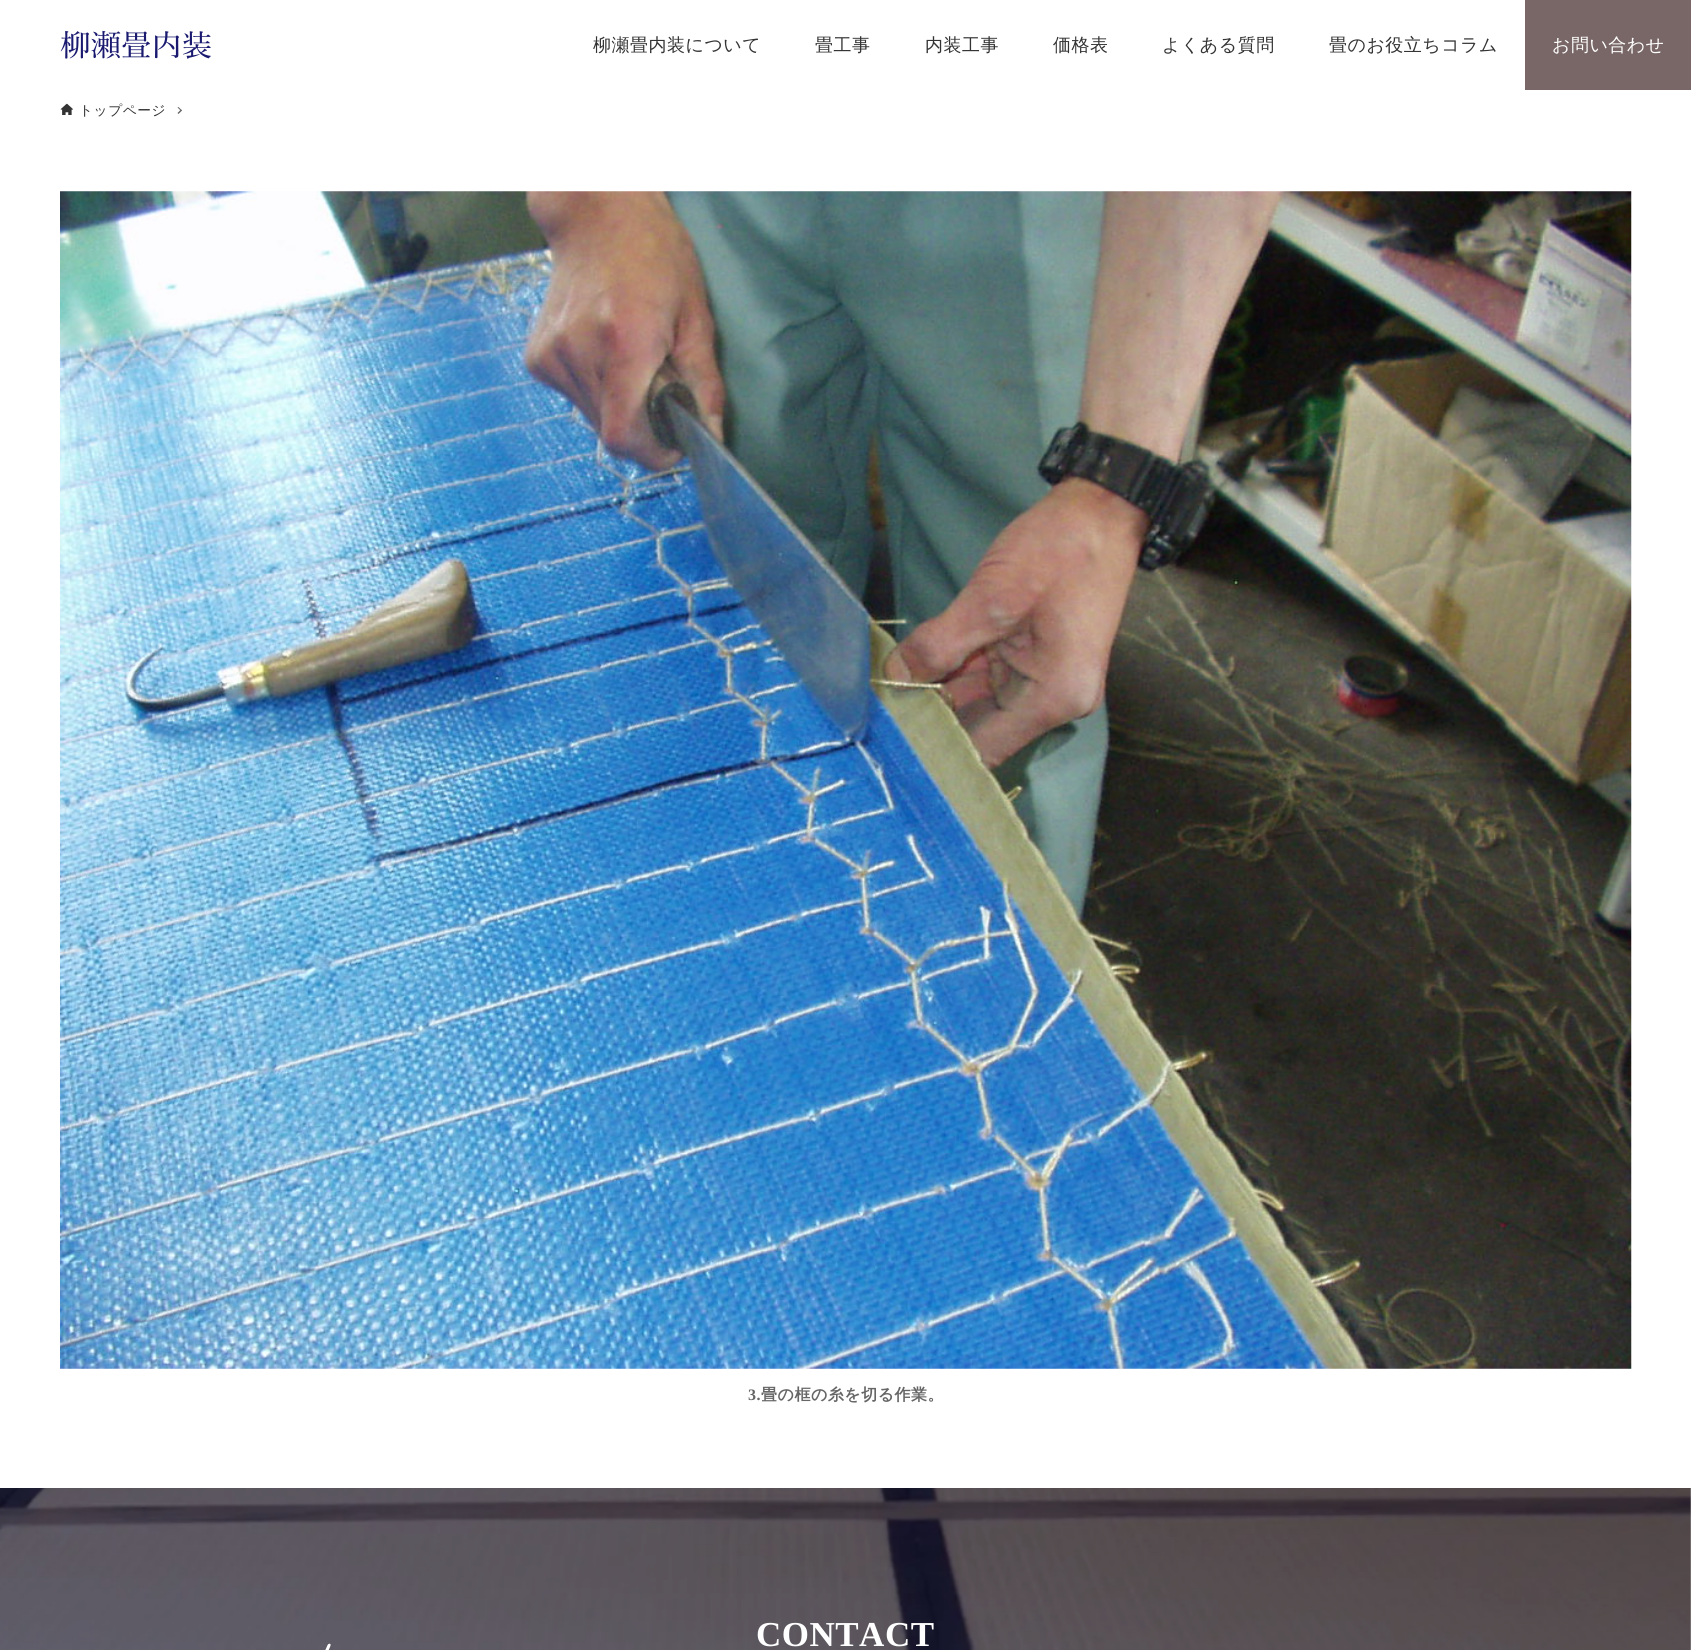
#include <cairo/cairo.h>
#include <math.h>
#include <stddef.h>


static void draw_spaced(cairo_t *cr, double x, double y, const char *s, double letter, double word) {
  cairo_move_to(cr, x, y);
  while (*s) {
    char ch[5] = {0};
    int n = 0;
    do ch[n++] = *s++; while ((*s & 0xC0) == 0x80);
    cairo_show_text(cr, ch);
    cairo_rel_move_to(cr, letter + word * (*ch == ' '), 0);
  }
}

static void draw_image(cairo_t *cr, const char *path, double x, double y, double w, double h) {
  cairo_surface_t *image = cairo_image_surface_create_from_png(path);
  cairo_save(cr);
  cairo_set_source_surface(cr, image, x, y);
  cairo_rectangle(cr, x, y, w, h);
  cairo_fill(cr);
  cairo_restore(cr);
  cairo_surface_destroy(image);
}

static void draw(cairo_t *cr) {
  cairo_set_source_rgb(cr, 1, 1, 1);
  cairo_paint(cr);
  draw_image(cr, "images/1.png", 60, 30, 151, 29);
  cairo_set_source_rgb(cr, 121 / 255.0, 103 / 255.0, 103 / 255.0);
  cairo_rectangle(cr, 1525, 0, 166, 90);
  cairo_fill(cr);
  draw_image(cr, "images/2.png", 60, 103, 13, 12);
  cairo_set_source_rgb(cr, 102 / 255.0, 102 / 255.0, 102 / 255.0);
  cairo_new_path(cr);
  cairo_move_to(cr, 178.5, 107);
  cairo_line_to(cr, 182, 110.5);
  cairo_line_to(cr, 181, 111);
  cairo_line_to(cr, 177.5, 107.5);
  cairo_close_path(cr);
  cairo_fill(cr);
  cairo_new_path(cr);
  cairo_move_to(cr, 181, 109.5);
  cairo_line_to(cr, 182, 110.5);
  cairo_line_to(cr, 178.5, 114);
  cairo_line_to(cr, 177.5, 113);
  cairo_close_path(cr);
  cairo_fill(cr);
  draw_image(cr, "images/3.png", 60, 191, 1572, 1178);
  draw_image(cr, "images/4.png", 0, 1488, 1691, 162);
  draw_image(cr, "images/5.png", 325, 1643, 6, 7);
  cairo_select_font_face(cr, "WenQuanYi Zen Hei Medium", CAIRO_FONT_SLANT_NORMAL, CAIRO_FONT_WEIGHT_NORMAL);
  cairo_set_font_size(cr, 18);
  cairo_set_source_rgb(cr, 51 / 255.0, 51 / 255.0, 51 / 255.0);
  draw_spaced(cr, 593, 51, "柳瀬畳内装について", 0.5, 0);
  draw_spaced(cr, 815, 51, "畳工事", 0.5, 0);
  draw_spaced(cr, 925, 51, "内装工事", 0.5, 0);
  draw_spaced(cr, 1053, 51, "価格表", 0.5, 0);
  draw_spaced(cr, 1162, 51, "よくある質問", 0.5, 0);
  draw_spaced(cr, 1329, 51, "畳のお役立ちコラム", 0.5, 0);
  cairo_set_source_rgb(cr, 1, 1, 1);
  draw_spaced(cr, 1552, 51, "お問い合わせ", 0.5, 0);
  cairo_set_font_size(cr, 13.75);
  cairo_set_source_rgb(cr, 51 / 255.0, 51 / 255.0, 51 / 255.0);
  draw_spaced(cr, 79, 115, "トップページ", 0.5, 0);
  cairo_select_font_face(cr, "Liberation Serif", CAIRO_FONT_SLANT_NORMAL, CAIRO_FONT_WEIGHT_BOLD);
  cairo_set_font_size(cr, 16);
  cairo_set_source_rgb(cr, 102 / 255.0, 102 / 255.0, 102 / 255.0);
  draw_spaced(cr, 748, 1400, "3.", 0.5, 0);
  cairo_select_font_face(cr, "WenQuanYi Zen Hei", CAIRO_FONT_SLANT_NORMAL, CAIRO_FONT_WEIGHT_BOLD);
  draw_spaced(cr, 761, 1400, "畳の框の糸を切る作業。", 0.5, 0);
  cairo_select_font_face(cr, "Liberation Serif", CAIRO_FONT_SLANT_NORMAL, CAIRO_FONT_WEIGHT_BOLD);
  cairo_set_font_size(cr, 35);
  cairo_set_source_rgb(cr, 1, 1, 1);
  draw_spaced(cr, 756, 1646, "CONTACT", 0.5, 0);
}

int main(void) {
  cairo_surface_t *surface = cairo_image_surface_create(CAIRO_FORMAT_RGB24, 1691, 1650);
  cairo_t *cr = cairo_create(surface);
  cairo_font_options_t *options = cairo_font_options_create();
  cairo_font_options_set_hint_metrics(options, CAIRO_HINT_METRICS_OFF);
  cairo_font_options_set_hint_style(options, CAIRO_HINT_STYLE_NONE);
  cairo_set_font_options(cr, options);
  cairo_set_miter_limit(cr, 4);
  draw(cr);
  cairo_surface_write_to_png(surface, "out.png");
  cairo_font_options_destroy(options);
  cairo_destroy(cr);
  cairo_surface_destroy(surface);
  return 0;
}
